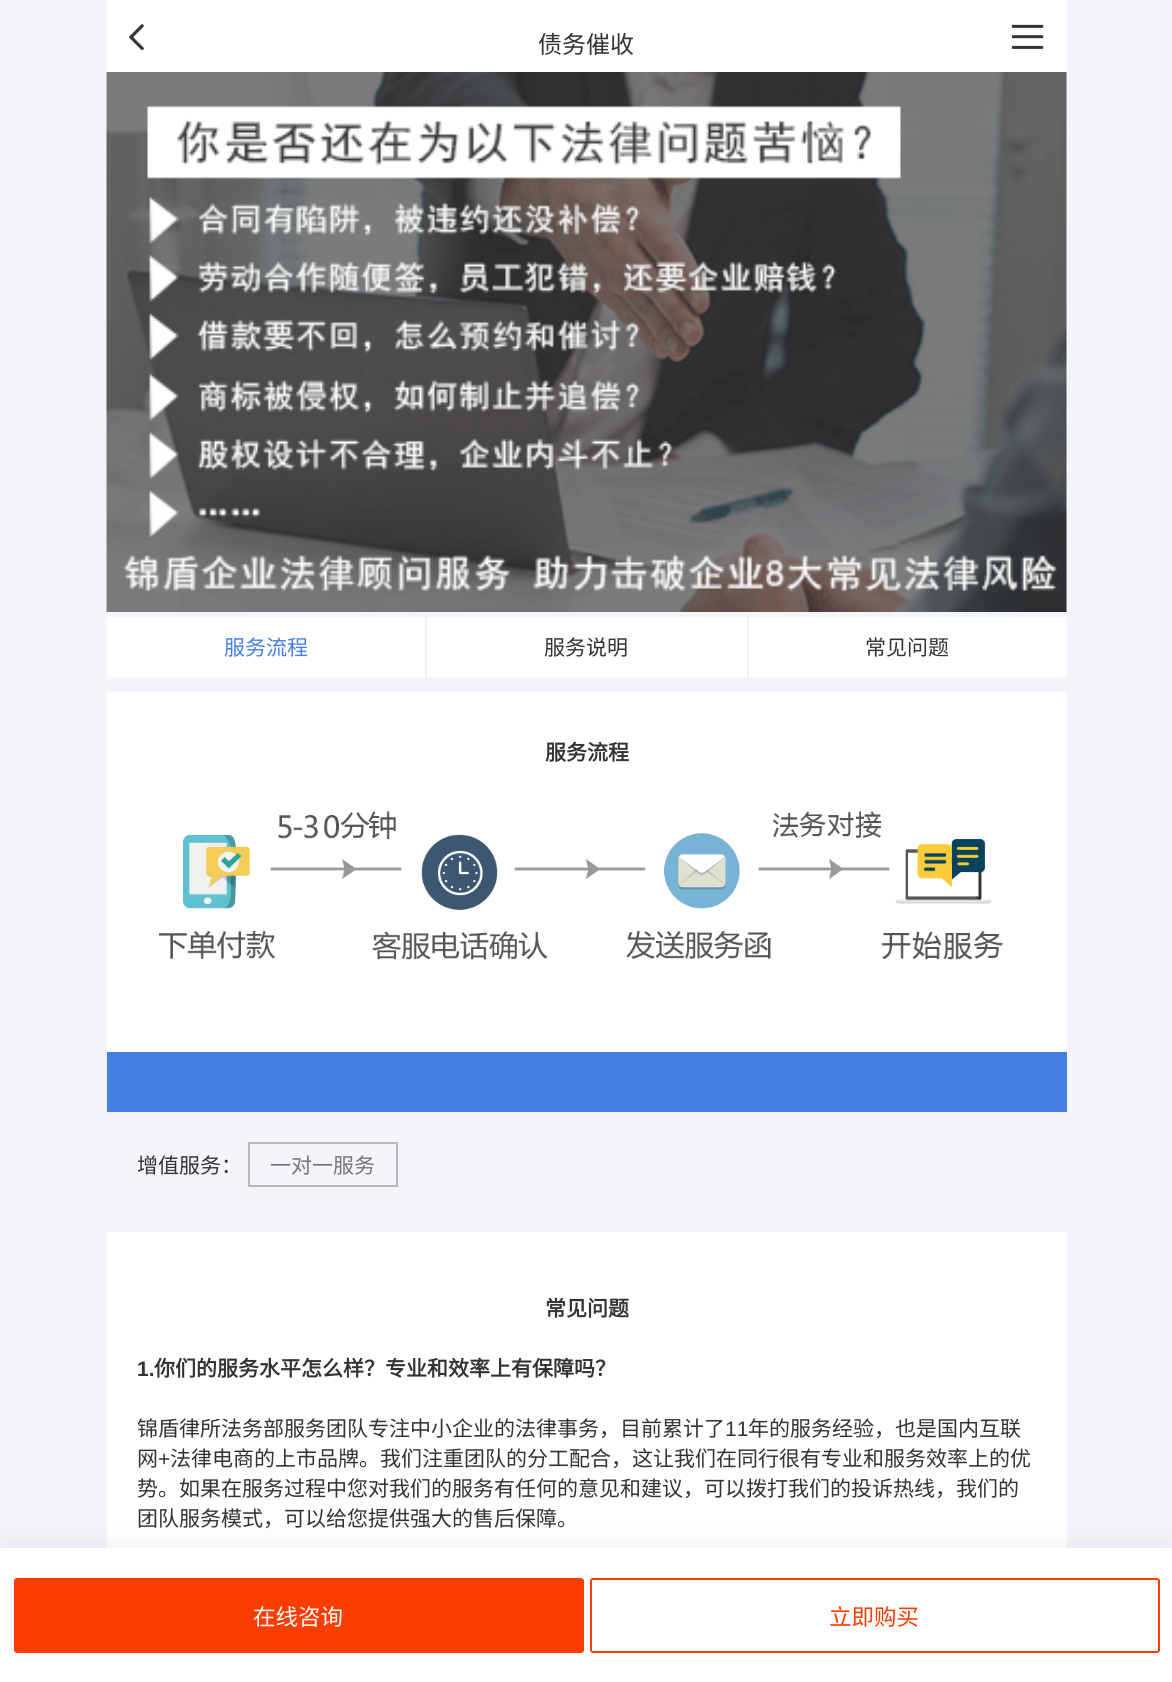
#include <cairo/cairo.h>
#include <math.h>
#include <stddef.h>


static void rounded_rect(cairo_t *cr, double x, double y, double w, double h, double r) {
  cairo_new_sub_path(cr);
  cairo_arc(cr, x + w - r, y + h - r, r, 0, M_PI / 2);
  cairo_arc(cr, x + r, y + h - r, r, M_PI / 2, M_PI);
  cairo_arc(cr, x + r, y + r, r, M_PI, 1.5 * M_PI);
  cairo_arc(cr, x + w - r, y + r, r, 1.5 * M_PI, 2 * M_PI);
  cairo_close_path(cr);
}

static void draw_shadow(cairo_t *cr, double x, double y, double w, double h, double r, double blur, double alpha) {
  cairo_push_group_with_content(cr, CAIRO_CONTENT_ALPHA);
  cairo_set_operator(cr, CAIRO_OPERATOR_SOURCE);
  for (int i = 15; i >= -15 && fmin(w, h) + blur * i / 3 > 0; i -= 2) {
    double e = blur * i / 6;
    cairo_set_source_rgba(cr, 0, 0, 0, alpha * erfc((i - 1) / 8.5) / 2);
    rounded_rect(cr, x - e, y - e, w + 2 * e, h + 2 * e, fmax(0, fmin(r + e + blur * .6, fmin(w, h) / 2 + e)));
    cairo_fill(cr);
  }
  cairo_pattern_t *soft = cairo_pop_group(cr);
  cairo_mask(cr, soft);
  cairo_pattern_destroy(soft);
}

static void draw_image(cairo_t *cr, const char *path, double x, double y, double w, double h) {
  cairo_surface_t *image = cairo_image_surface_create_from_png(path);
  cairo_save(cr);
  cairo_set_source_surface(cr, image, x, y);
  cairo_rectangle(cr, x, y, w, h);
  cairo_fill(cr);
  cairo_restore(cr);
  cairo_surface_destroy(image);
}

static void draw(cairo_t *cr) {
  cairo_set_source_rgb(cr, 244 / 255.0, 245 / 255.0, 251 / 255.0);
  cairo_paint(cr);
  cairo_set_source_rgb(cr, 1, 1, 1);
  cairo_rectangle(cr, 107, 0, 960, 72);
  cairo_fill(cr);
  draw_image(cr, "images/1.png", 129, 24, 15, 27);
  draw_image(cr, "images/2.png", 1011, 24, 33, 25);
  draw_image(cr, "images/3.png", 106, 72, 961, 540);
  cairo_rectangle(cr, 107, 617, 960, 60);
  cairo_fill(cr);
  cairo_set_source_rgb(cr, 242 / 255.0, 242 / 255.0, 242 / 255.0);
  cairo_rectangle(cr, 425, 615, 2, 62);
  cairo_fill(cr);
  cairo_rectangle(cr, 747, 615, 2, 62);
  cairo_fill(cr);
  cairo_set_source_rgb(cr, 1, 1, 1);
  cairo_rectangle(cr, 107, 692, 960, 360);
  cairo_fill(cr);
  draw_image(cr, "images/4.png", 159, 811, 844, 149);
  cairo_set_source_rgb(cr, 69 / 255.0, 127 / 255.0, 226 / 255.0);
  cairo_rectangle(cr, 107, 1052, 960, 60);
  cairo_fill(cr);
  cairo_rectangle(cr, 249, 1143, 148, 43);
  cairo_set_source_rgb(cr, 186 / 255.0, 185 / 255.0, 185 / 255.0);
  cairo_stroke(cr);
  cairo_set_source_rgb(cr, 1, 1, 1);
  cairo_rectangle(cr, 107, 1232, 960, 316);
  cairo_fill(cr);
  cairo_set_source_rgb(cr, 0, 0, 0);
  draw_shadow(cr, 0, 1544, 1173, 135, 0, 15, 0.06);
  cairo_set_source_rgb(cr, 1, 1, 1);
  cairo_rectangle(cr, 0, 1548, 1172, 134);
  cairo_fill(cr);
  cairo_set_source_rgb(cr, 253 / 255.0, 61 / 255.0, 0);
  rounded_rect(cr, 15, 1579, 568, 73, 2);
  cairo_fill_preserve(cr);
  cairo_stroke(cr);
  rounded_rect(cr, 591, 1579, 568, 73, 2);
  cairo_stroke(cr);
  cairo_select_font_face(cr, "Noto Sans CJK SC", CAIRO_FONT_SLANT_NORMAL, CAIRO_FONT_WEIGHT_NORMAL);
  cairo_set_font_size(cr, 24);
  cairo_set_source_rgb(cr, 51 / 255.0, 51 / 255.0, 51 / 255.0);
  cairo_move_to(cr, 538, 53);
  cairo_show_text(cr, "债务催收");
  cairo_set_font_size(cr, 21);
  cairo_set_source_rgb(cr, 69 / 255.0, 127 / 255.0, 226 / 255.0);
  cairo_move_to(cr, 224, 655);
  cairo_show_text(cr, "服务流程");
  cairo_set_source_rgb(cr, 51 / 255.0, 51 / 255.0, 51 / 255.0);
  cairo_move_to(cr, 544, 655);
  cairo_show_text(cr, "服务说明");
  cairo_move_to(cr, 865, 655);
  cairo_show_text(cr, "常见问题");
  cairo_select_font_face(cr, "Noto Sans CJK SC", CAIRO_FONT_SLANT_NORMAL, CAIRO_FONT_WEIGHT_BOLD);
  cairo_move_to(cr, 545, 760);
  cairo_show_text(cr, "服务流程");
  cairo_select_font_face(cr, "Noto Sans CJK SC", CAIRO_FONT_SLANT_NORMAL, CAIRO_FONT_WEIGHT_NORMAL);
  cairo_move_to(cr, 137, 1173);
  cairo_show_text(cr, "增值服务：");
  cairo_set_source_rgb(cr, 117 / 255.0, 117 / 255.0, 117 / 255.0);
  cairo_move_to(cr, 270, 1173);
  cairo_show_text(cr, "一对一服务");
  cairo_select_font_face(cr, "Noto Sans CJK SC", CAIRO_FONT_SLANT_NORMAL, CAIRO_FONT_WEIGHT_BOLD);
  cairo_set_source_rgb(cr, 51 / 255.0, 51 / 255.0, 51 / 255.0);
  cairo_move_to(cr, 545, 1316);
  cairo_show_text(cr, "常见问题");
  cairo_select_font_face(cr, "Liberation Sans", CAIRO_FONT_SLANT_NORMAL, CAIRO_FONT_WEIGHT_BOLD);
  cairo_move_to(cr, 137, 1376);
  cairo_show_text(cr, "1.");
  cairo_select_font_face(cr, "Noto Sans CJK SC", CAIRO_FONT_SLANT_NORMAL, CAIRO_FONT_WEIGHT_BOLD);
  cairo_move_to(cr, 154, 1376);
  cairo_show_text(cr, "你们的服务水平怎么样？专业和效率上有保障吗？");
  cairo_select_font_face(cr, "Noto Sans CJK SC", CAIRO_FONT_SLANT_NORMAL, CAIRO_FONT_WEIGHT_NORMAL);
  cairo_move_to(cr, 137, 1436);
  cairo_show_text(cr, "锦盾律所法务部服务团队专注中小企业的法律事务，目前累计了");
  cairo_select_font_face(cr, "Liberation Sans", CAIRO_FONT_SLANT_NORMAL, CAIRO_FONT_WEIGHT_NORMAL);
  cairo_move_to(cr, 725, 1436);
  cairo_show_text(cr, "11");
  cairo_select_font_face(cr, "Noto Sans CJK SC", CAIRO_FONT_SLANT_NORMAL, CAIRO_FONT_WEIGHT_NORMAL);
  cairo_move_to(cr, 748, 1436);
  cairo_show_text(cr, "年的服务经验，也是国内互联");
  cairo_move_to(cr, 137, 1466);
  cairo_show_text(cr, "网");
  cairo_select_font_face(cr, "Liberation Sans", CAIRO_FONT_SLANT_NORMAL, CAIRO_FONT_WEIGHT_NORMAL);
  cairo_move_to(cr, 158, 1466);
  cairo_show_text(cr, "+");
  cairo_select_font_face(cr, "Noto Sans CJK SC", CAIRO_FONT_SLANT_NORMAL, CAIRO_FONT_WEIGHT_NORMAL);
  cairo_move_to(cr, 170, 1466);
  cairo_show_text(cr, "法律电商的上市品牌。我们注重团队的分工配合，这让我们在同行很有专业和服务效率上的优");
  cairo_move_to(cr, 137, 1496);
  cairo_show_text(cr, "势。如果在服务过程中您对我们的服务有任何的意见和建议，可以拨打我们的投诉热线，我们的");
  cairo_move_to(cr, 137, 1526);
  cairo_show_text(cr, "团队服务模式，可以给您提供强大的售后保障。");
  cairo_set_font_size(cr, 22.5);
  cairo_set_source_rgb(cr, 1, 1, 1);
  cairo_move_to(cr, 253, 1625);
  cairo_show_text(cr, "在线咨询");
  cairo_set_source_rgb(cr, 253 / 255.0, 61 / 255.0, 0);
  cairo_move_to(cr, 829, 1625);
  cairo_show_text(cr, "立即购买");
}

int main(void) {
  cairo_surface_t *surface = cairo_image_surface_create(CAIRO_FORMAT_RGB24, 1172, 1682);
  cairo_t *cr = cairo_create(surface);
  cairo_font_options_t *options = cairo_font_options_create();
  cairo_font_options_set_hint_metrics(options, CAIRO_HINT_METRICS_OFF);
  cairo_font_options_set_hint_style(options, CAIRO_HINT_STYLE_NONE);
  cairo_set_font_options(cr, options);
  cairo_set_miter_limit(cr, 4);
  draw(cr);
  cairo_surface_write_to_png(surface, "out.png");
  cairo_font_options_destroy(options);
  cairo_destroy(cr);
  cairo_surface_destroy(surface);
  return 0;
}
